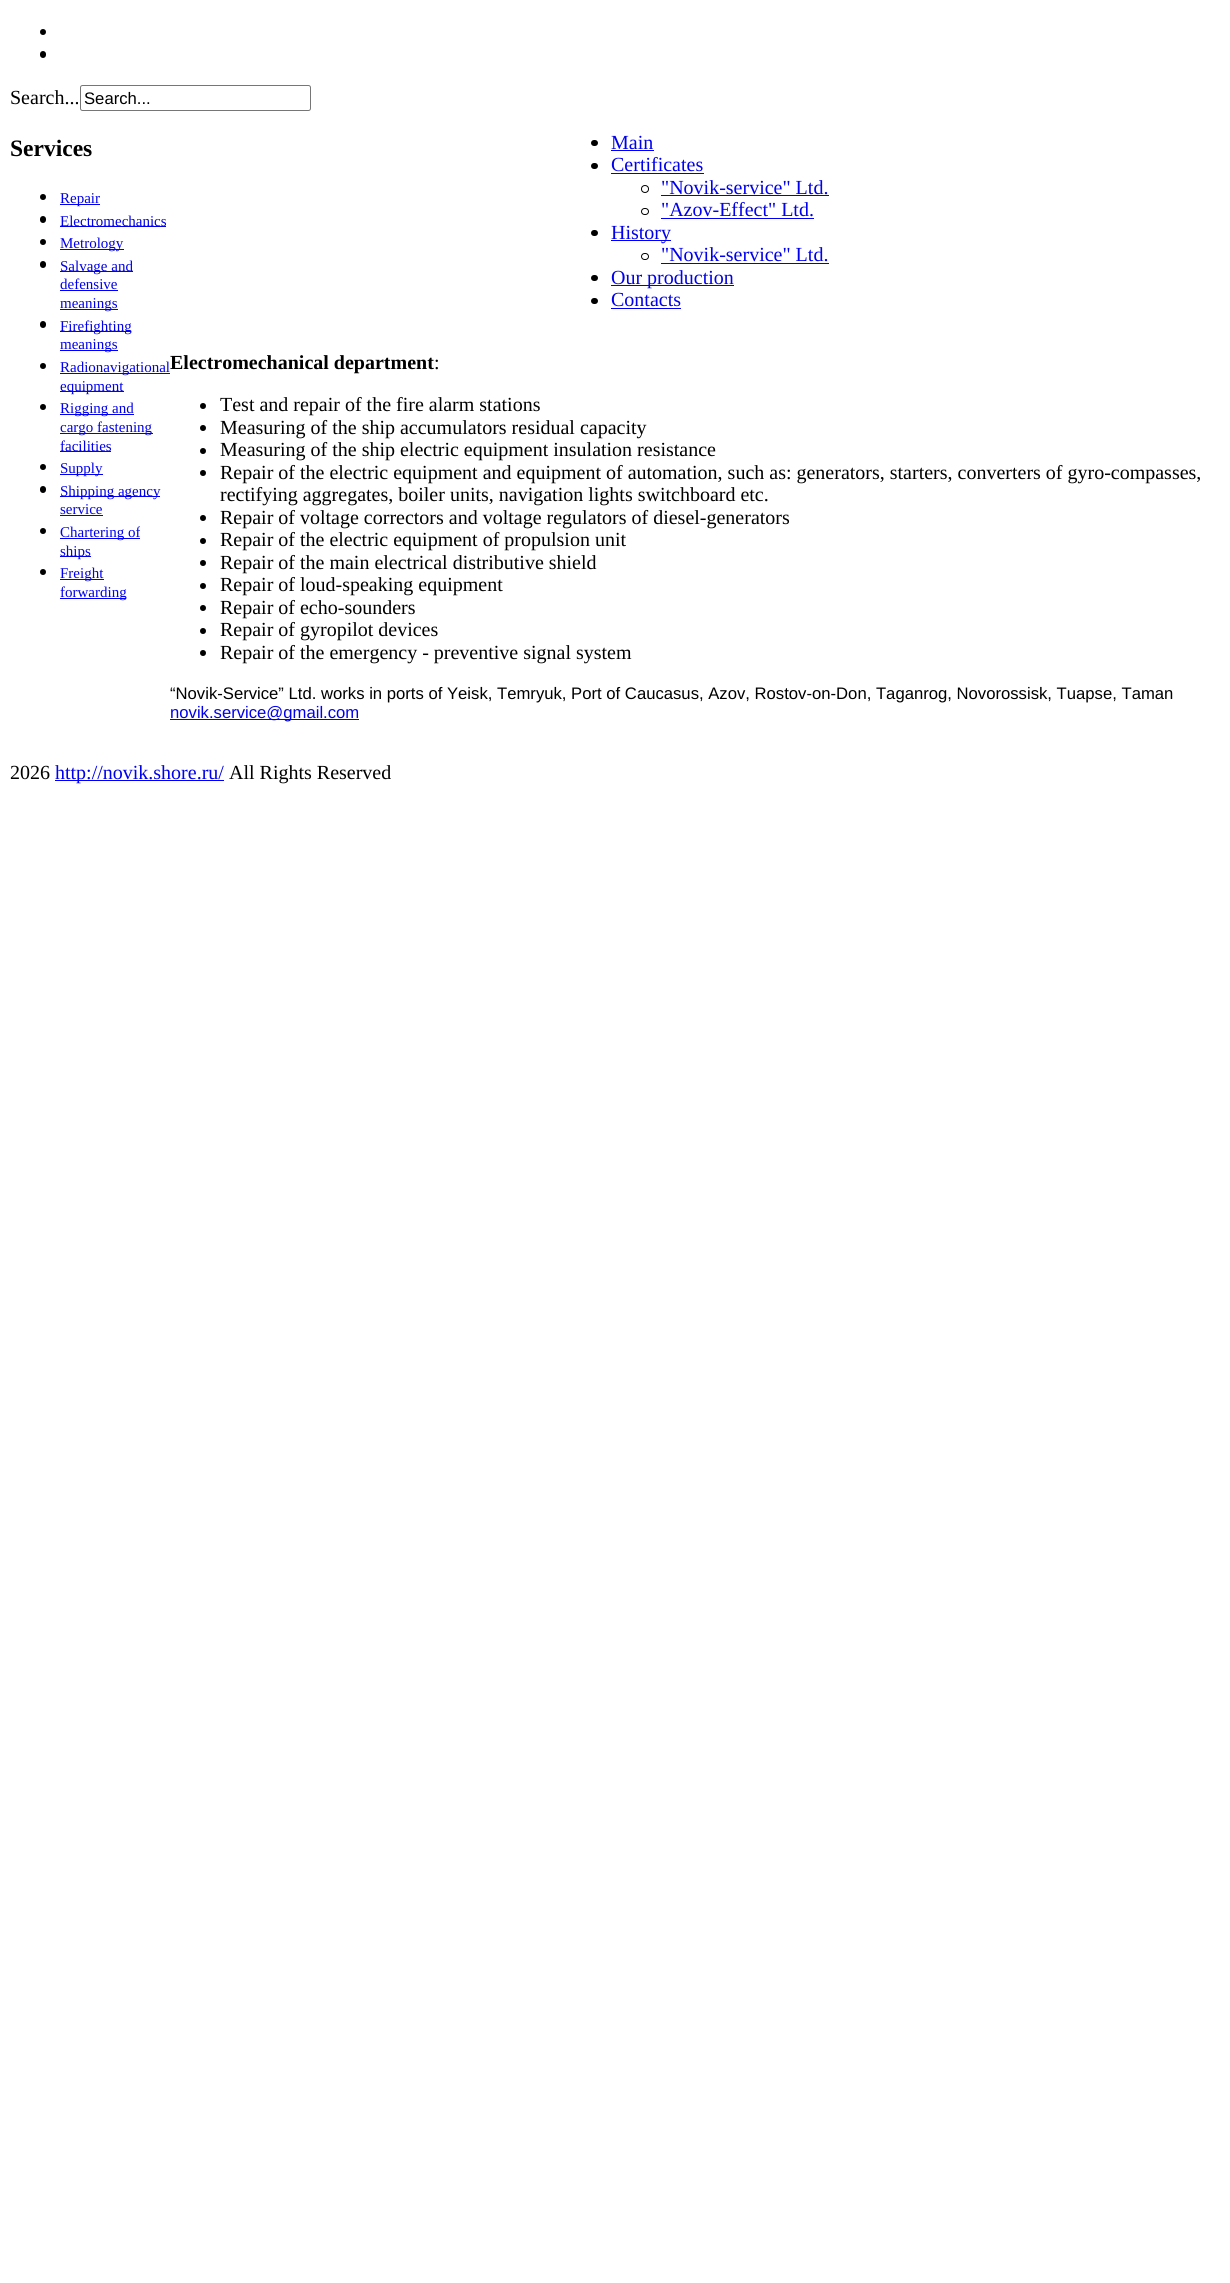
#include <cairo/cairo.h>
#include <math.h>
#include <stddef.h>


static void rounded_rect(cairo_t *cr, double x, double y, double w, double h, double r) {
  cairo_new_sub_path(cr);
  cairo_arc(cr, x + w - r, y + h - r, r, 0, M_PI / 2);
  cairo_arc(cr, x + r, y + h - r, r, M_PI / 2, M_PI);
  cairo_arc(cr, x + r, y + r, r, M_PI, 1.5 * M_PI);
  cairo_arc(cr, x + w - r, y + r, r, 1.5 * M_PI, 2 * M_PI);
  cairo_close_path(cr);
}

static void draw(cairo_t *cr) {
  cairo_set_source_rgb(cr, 1, 1, 1);
  cairo_paint(cr);
  cairo_set_source_rgb(cr, 0, 0, 0);
  cairo_arc(cr, 43, 32, 3, 0, 2 * M_PI);
  cairo_fill(cr);
  rounded_rect(cr, 40, 51, 6, 7, 3);
  cairo_fill(cr);
  rounded_rect(cr, 80.5, 85.5, 230, 25, 2);
  cairo_set_source_rgb(cr, 118 / 255.0, 118 / 255.0, 118 / 255.0);
  cairo_set_line_width(cr, 1);
  cairo_stroke(cr);
  cairo_set_source_rgb(cr, 0, 0, 0);
  cairo_arc(cr, 43, 197, 3, 0, 2 * M_PI);
  cairo_fill(cr);
  cairo_set_source_rgb(cr, 0, 0, 238 / 255.0);
  cairo_rectangle(cr, 60, 204, 40, 1);
  cairo_fill(cr);
  cairo_set_source_rgb(cr, 0, 0, 0);
  rounded_rect(cr, 40, 216, 6, 7, 3);
  cairo_fill(cr);
  cairo_set_source_rgb(cr, 0, 0, 238 / 255.0);
  cairo_rectangle(cr, 60, 226, 106, 1);
  cairo_fill(cr);
  cairo_set_source_rgb(cr, 0, 0, 0);
  cairo_arc(cr, 43, 242, 3, 0, 2 * M_PI);
  cairo_fill(cr);
  cairo_set_source_rgb(cr, 0, 0, 238 / 255.0);
  cairo_rectangle(cr, 60, 249, 64, 1);
  cairo_fill(cr);
  cairo_set_source_rgb(cr, 0, 0, 0);
  rounded_rect(cr, 40, 261, 6, 7, 3);
  cairo_fill(cr);
  cairo_set_source_rgb(cr, 0, 0, 238 / 255.0);
  cairo_rectangle(cr, 60, 271, 73, 1);
  cairo_fill(cr);
  cairo_rectangle(cr, 60, 290, 58, 1);
  cairo_fill(cr);
  cairo_rectangle(cr, 60, 309, 58, 1);
  cairo_fill(cr);
  cairo_set_source_rgb(cr, 0, 0, 0);
  rounded_rect(cr, 40, 321, 6, 7, 3);
  cairo_fill(cr);
  cairo_set_source_rgb(cr, 0, 0, 238 / 255.0);
  cairo_rectangle(cr, 60, 331, 71, 1);
  cairo_fill(cr);
  cairo_rectangle(cr, 60, 350, 58, 1);
  cairo_fill(cr);
  cairo_set_source_rgb(cr, 0, 0, 0);
  cairo_arc(cr, 43, 366, 3, 0, 2 * M_PI);
  cairo_fill(cr);
  cairo_set_source_rgb(cr, 0, 0, 238 / 255.0);
  cairo_rectangle(cr, 60, 373, 110, 1);
  cairo_fill(cr);
  cairo_rectangle(cr, 60, 391, 64, 1);
  cairo_fill(cr);
  cairo_set_source_rgb(cr, 0, 0, 0);
  cairo_arc(cr, 43, 407, 3, 0, 2 * M_PI);
  cairo_fill(cr);
  cairo_set_source_rgb(cr, 0, 0, 238 / 255.0);
  cairo_rectangle(cr, 60, 414, 74, 1);
  cairo_fill(cr);
  cairo_rectangle(cr, 60, 433, 93, 1);
  cairo_fill(cr);
  cairo_rectangle(cr, 60, 451, 51, 1);
  cairo_fill(cr);
  cairo_set_source_rgb(cr, 0, 0, 0);
  cairo_arc(cr, 43, 467, 3, 0, 2 * M_PI);
  cairo_fill(cr);
  cairo_set_source_rgb(cr, 0, 0, 238 / 255.0);
  cairo_rectangle(cr, 60, 474, 43, 1);
  cairo_fill(cr);
  cairo_set_source_rgb(cr, 0, 0, 0);
  rounded_rect(cr, 40, 486, 6, 7, 3);
  cairo_fill(cr);
  cairo_set_source_rgb(cr, 0, 0, 238 / 255.0);
  cairo_rectangle(cr, 60, 496, 100, 1);
  cairo_fill(cr);
  cairo_rectangle(cr, 60, 515, 43, 1);
  cairo_fill(cr);
  cairo_set_source_rgb(cr, 0, 0, 0);
  cairo_arc(cr, 43, 531, 3, 0, 2 * M_PI);
  cairo_fill(cr);
  cairo_set_source_rgb(cr, 0, 0, 238 / 255.0);
  cairo_rectangle(cr, 60, 538, 80, 1);
  cairo_fill(cr);
  cairo_rectangle(cr, 60, 556, 31, 1);
  cairo_fill(cr);
  cairo_set_source_rgb(cr, 0, 0, 0);
  cairo_arc(cr, 43, 572, 3, 0, 2 * M_PI);
  cairo_fill(cr);
  cairo_set_source_rgb(cr, 0, 0, 238 / 255.0);
  cairo_rectangle(cr, 60, 579, 44, 1);
  cairo_fill(cr);
  cairo_rectangle(cr, 60, 598, 66, 1);
  cairo_fill(cr);
  cairo_set_source_rgb(cr, 0, 0, 0);
  rounded_rect(cr, 591, 140, 7, 6, 3);
  cairo_fill(cr);
  cairo_set_source_rgb(cr, 0, 0, 238 / 255.0);
  cairo_rectangle(cr, 611, 150, 43, 1);
  cairo_fill(cr);
  cairo_set_source_rgb(cr, 0, 0, 0);
  rounded_rect(cr, 591, 163, 7, 6, 3);
  cairo_fill(cr);
  cairo_set_source_rgb(cr, 0, 0, 238 / 255.0);
  cairo_rectangle(cr, 611, 173, 93, 1);
  cairo_fill(cr);
  cairo_arc(cr, 645, 189, 3.5, 0, 2 * M_PI);
  cairo_set_source_rgb(cr, 0, 0, 0);
  cairo_stroke(cr);
  cairo_set_source_rgb(cr, 0, 0, 238 / 255.0);
  cairo_rectangle(cr, 661, 195, 168, 1);
  cairo_fill(cr);
  rounded_rect(cr, 641.5, 208.5, 7, 6, 3);
  cairo_set_source_rgb(cr, 0, 0, 0);
  cairo_stroke(cr);
  cairo_set_source_rgb(cr, 0, 0, 238 / 255.0);
  cairo_rectangle(cr, 661, 218, 153, 1);
  cairo_fill(cr);
  cairo_set_source_rgb(cr, 0, 0, 0);
  rounded_rect(cr, 591, 230, 7, 6, 3);
  cairo_fill(cr);
  cairo_set_source_rgb(cr, 0, 0, 238 / 255.0);
  cairo_rectangle(cr, 611, 240, 60, 1);
  cairo_fill(cr);
  rounded_rect(cr, 641.5, 253.5, 7, 6, 3);
  cairo_set_source_rgb(cr, 0, 0, 0);
  cairo_stroke(cr);
  cairo_set_source_rgb(cr, 0, 0, 238 / 255.0);
  cairo_rectangle(cr, 661, 263, 168, 1);
  cairo_fill(cr);
  cairo_set_source_rgb(cr, 0, 0, 0);
  rounded_rect(cr, 591, 275, 7, 6, 3);
  cairo_fill(cr);
  cairo_set_source_rgb(cr, 0, 0, 238 / 255.0);
  cairo_rectangle(cr, 611, 285, 123, 1);
  cairo_fill(cr);
  cairo_set_source_rgb(cr, 0, 0, 0);
  rounded_rect(cr, 591, 298, 7, 6, 3);
  cairo_fill(cr);
  cairo_set_source_rgb(cr, 0, 0, 238 / 255.0);
  cairo_rectangle(cr, 611, 308, 70, 1);
  cairo_fill(cr);
  cairo_set_source_rgb(cr, 0, 0, 0);
  cairo_arc(cr, 203, 406, 3, 0, 2 * M_PI);
  cairo_fill(cr);
  cairo_arc(cr, 203, 428, 3, 0, 2 * M_PI);
  cairo_fill(cr);
  cairo_arc(cr, 203, 451, 3, 0, 2 * M_PI);
  cairo_fill(cr);
  cairo_arc(cr, 203, 473, 3, 0, 2 * M_PI);
  cairo_fill(cr);
  cairo_arc(cr, 203, 518, 3, 0, 2 * M_PI);
  cairo_fill(cr);
  cairo_arc(cr, 203, 541, 3, 0, 2 * M_PI);
  cairo_fill(cr);
  cairo_arc(cr, 203, 563, 3, 0, 2 * M_PI);
  cairo_fill(cr);
  cairo_arc(cr, 203, 586, 3, 0, 2 * M_PI);
  cairo_fill(cr);
  cairo_arc(cr, 203, 608, 3, 0, 2 * M_PI);
  cairo_fill(cr);
  cairo_arc(cr, 203, 631, 3, 0, 2 * M_PI);
  cairo_fill(cr);
  cairo_arc(cr, 203, 653, 3, 0, 2 * M_PI);
  cairo_fill(cr);
  cairo_set_source_rgb(cr, 0, 0, 238 / 255.0);
  cairo_rectangle(cr, 170, 719, 189, 1);
  cairo_fill(cr);
  cairo_rectangle(cr, 55, 780, 169, 1);
  cairo_fill(cr);
  cairo_select_font_face(cr, "Liberation Serif", CAIRO_FONT_SLANT_NORMAL, CAIRO_FONT_WEIGHT_NORMAL);
  cairo_set_font_size(cr, 20);
  cairo_set_source_rgb(cr, 0, 0, 0);
  cairo_move_to(cr, 10, 104);
  cairo_show_text(cr, "Search...");
  cairo_select_font_face(cr, "Liberation Sans", CAIRO_FONT_SLANT_NORMAL, CAIRO_FONT_WEIGHT_NORMAL);
  cairo_set_font_size(cr, 16.67);
  cairo_move_to(cr, 84, 104);
  cairo_show_text(cr, "Search...");
  cairo_select_font_face(cr, "Liberation Serif", CAIRO_FONT_SLANT_NORMAL, CAIRO_FONT_WEIGHT_BOLD);
  cairo_set_font_size(cr, 23.5);
  cairo_move_to(cr, 10, 156);
  cairo_show_text(cr, "Services");
  cairo_select_font_face(cr, "Liberation Serif", CAIRO_FONT_SLANT_NORMAL, CAIRO_FONT_WEIGHT_NORMAL);
  cairo_set_font_size(cr, 15);
  cairo_set_source_rgb(cr, 0, 0, 238 / 255.0);
  cairo_move_to(cr, 60, 203);
  cairo_show_text(cr, "Repair");
  cairo_move_to(cr, 60, 226);
  cairo_show_text(cr, "Electromechanics");
  cairo_move_to(cr, 60, 248);
  cairo_show_text(cr, "Metrology");
  cairo_move_to(cr, 60, 271);
  cairo_show_text(cr, "Salvage and");
  cairo_move_to(cr, 60, 289);
  cairo_show_text(cr, "defensive");
  cairo_move_to(cr, 60, 308);
  cairo_show_text(cr, "meanings");
  cairo_move_to(cr, 60, 331);
  cairo_show_text(cr, "Firefighting");
  cairo_move_to(cr, 60, 349);
  cairo_show_text(cr, "meanings");
  cairo_move_to(cr, 60, 372);
  cairo_show_text(cr, "Radionavigational");
  cairo_move_to(cr, 60, 391);
  cairo_show_text(cr, "equipment");
  cairo_move_to(cr, 60, 413);
  cairo_show_text(cr, "Rigging and");
  cairo_move_to(cr, 60, 432);
  cairo_show_text(cr, "cargo fastening");
  cairo_move_to(cr, 60, 451);
  cairo_show_text(cr, "facilities");
  cairo_move_to(cr, 60, 473);
  cairo_show_text(cr, "Supply");
  cairo_move_to(cr, 60, 496);
  cairo_show_text(cr, "Shipping agency");
  cairo_move_to(cr, 60, 514);
  cairo_show_text(cr, "service");
  cairo_move_to(cr, 60, 537);
  cairo_show_text(cr, "Chartering of");
  cairo_move_to(cr, 60, 556);
  cairo_show_text(cr, "ships");
  cairo_move_to(cr, 60, 578);
  cairo_show_text(cr, "Freight");
  cairo_move_to(cr, 60, 597);
  cairo_show_text(cr, "forwarding");
  cairo_set_font_size(cr, 20);
  cairo_move_to(cr, 611, 149);
  cairo_show_text(cr, "Main");
  cairo_move_to(cr, 611, 171);
  cairo_show_text(cr, "Certificates");
  cairo_move_to(cr, 661, 194);
  cairo_show_text(cr, "\"Novik-service\" Ltd.");
  cairo_move_to(cr, 661, 216);
  cairo_show_text(cr, "\"Azov-Effect\" Ltd.");
  cairo_move_to(cr, 611, 239);
  cairo_show_text(cr, "History");
  cairo_move_to(cr, 661, 261);
  cairo_show_text(cr, "\"Novik-service\" Ltd.");
  cairo_move_to(cr, 611, 284);
  cairo_show_text(cr, "Our production");
  cairo_move_to(cr, 611, 306);
  cairo_show_text(cr, "Contacts");
  cairo_select_font_face(cr, "Liberation Serif", CAIRO_FONT_SLANT_NORMAL, CAIRO_FONT_WEIGHT_BOLD);
  cairo_set_source_rgb(cr, 0, 0, 0);
  cairo_move_to(cr, 170, 369);
  cairo_show_text(cr, "Electromechanical department");
  cairo_select_font_face(cr, "Liberation Serif", CAIRO_FONT_SLANT_NORMAL, CAIRO_FONT_WEIGHT_NORMAL);
  cairo_move_to(cr, 434, 369);
  cairo_show_text(cr, ":");
  cairo_move_to(cr, 220, 411);
  cairo_show_text(cr, "Test and repair of the fire alarm stations");
  cairo_move_to(cr, 220, 434);
  cairo_show_text(cr, "Measuring of the ship accumulators residual capacity");
  cairo_move_to(cr, 220, 456);
  cairo_show_text(cr, "Measuring of the ship electric equipment insulation resistance");
  cairo_move_to(cr, 220, 479);
  cairo_show_text(cr, "Repair of the electric equipment and equipment of automation, such as: generators, starters, converters of gyro-compasses,");
  cairo_move_to(cr, 220, 501);
  cairo_show_text(cr, "rectifying aggregates, boiler units, navigation lights switchboard etc.");
  cairo_move_to(cr, 220, 524);
  cairo_show_text(cr, "Repair of voltage correctors and voltage regulators of diesel-generators");
  cairo_move_to(cr, 220, 546);
  cairo_show_text(cr, "Repair of the electric equipment of propulsion unit");
  cairo_move_to(cr, 220, 569);
  cairo_show_text(cr, "Repair of the main electrical distributive shield");
  cairo_move_to(cr, 220, 591);
  cairo_show_text(cr, "Repair of loud-speaking equipment");
  cairo_move_to(cr, 220, 614);
  cairo_show_text(cr, "Repair of echo-sounders");
  cairo_move_to(cr, 220, 636);
  cairo_show_text(cr, "Repair of gyropilot devices");
  cairo_move_to(cr, 220, 659);
  cairo_show_text(cr, "Repair of the emergency - preventive signal system");
  cairo_select_font_face(cr, "Liberation Sans", CAIRO_FONT_SLANT_NORMAL, CAIRO_FONT_WEIGHT_NORMAL);
  cairo_set_font_size(cr, 16.67);
  cairo_move_to(cr, 170, 699);
  cairo_show_text(cr, "“Novik-Service” Ltd. works in ports of Yeisk, Temryuk, Port of Caucasus, Azov, Rostov-on-Don, Taganrog, Novorossisk, Tuapse, Taman");
  cairo_set_source_rgb(cr, 0, 0, 238 / 255.0);
  cairo_move_to(cr, 170, 718);
  cairo_show_text(cr, "novik.service@gmail.com");
  cairo_select_font_face(cr, "Liberation Serif", CAIRO_FONT_SLANT_NORMAL, CAIRO_FONT_WEIGHT_NORMAL);
  cairo_set_font_size(cr, 20);
  cairo_set_source_rgb(cr, 0, 0, 0);
  cairo_move_to(cr, 10, 779);
  cairo_show_text(cr, "2026");
  cairo_set_source_rgb(cr, 0, 0, 238 / 255.0);
  cairo_move_to(cr, 55, 779);
  cairo_show_text(cr, "http://novik.shore.ru/");
  cairo_set_source_rgb(cr, 0, 0, 0);
  cairo_move_to(cr, 229, 779);
  cairo_show_text(cr, "All Rights Reserved");
}

int main(void) {
  cairo_surface_t *surface = cairo_image_surface_create(CAIRO_FORMAT_RGB24, 1230, 2283);
  cairo_t *cr = cairo_create(surface);
  cairo_font_options_t *options = cairo_font_options_create();
  cairo_font_options_set_hint_metrics(options, CAIRO_HINT_METRICS_OFF);
  cairo_font_options_set_hint_style(options, CAIRO_HINT_STYLE_NONE);
  cairo_set_font_options(cr, options);
  cairo_set_miter_limit(cr, 4);
  draw(cr);
  cairo_surface_write_to_png(surface, "out.png");
  cairo_font_options_destroy(options);
  cairo_destroy(cr);
  cairo_surface_destroy(surface);
  return 0;
}
